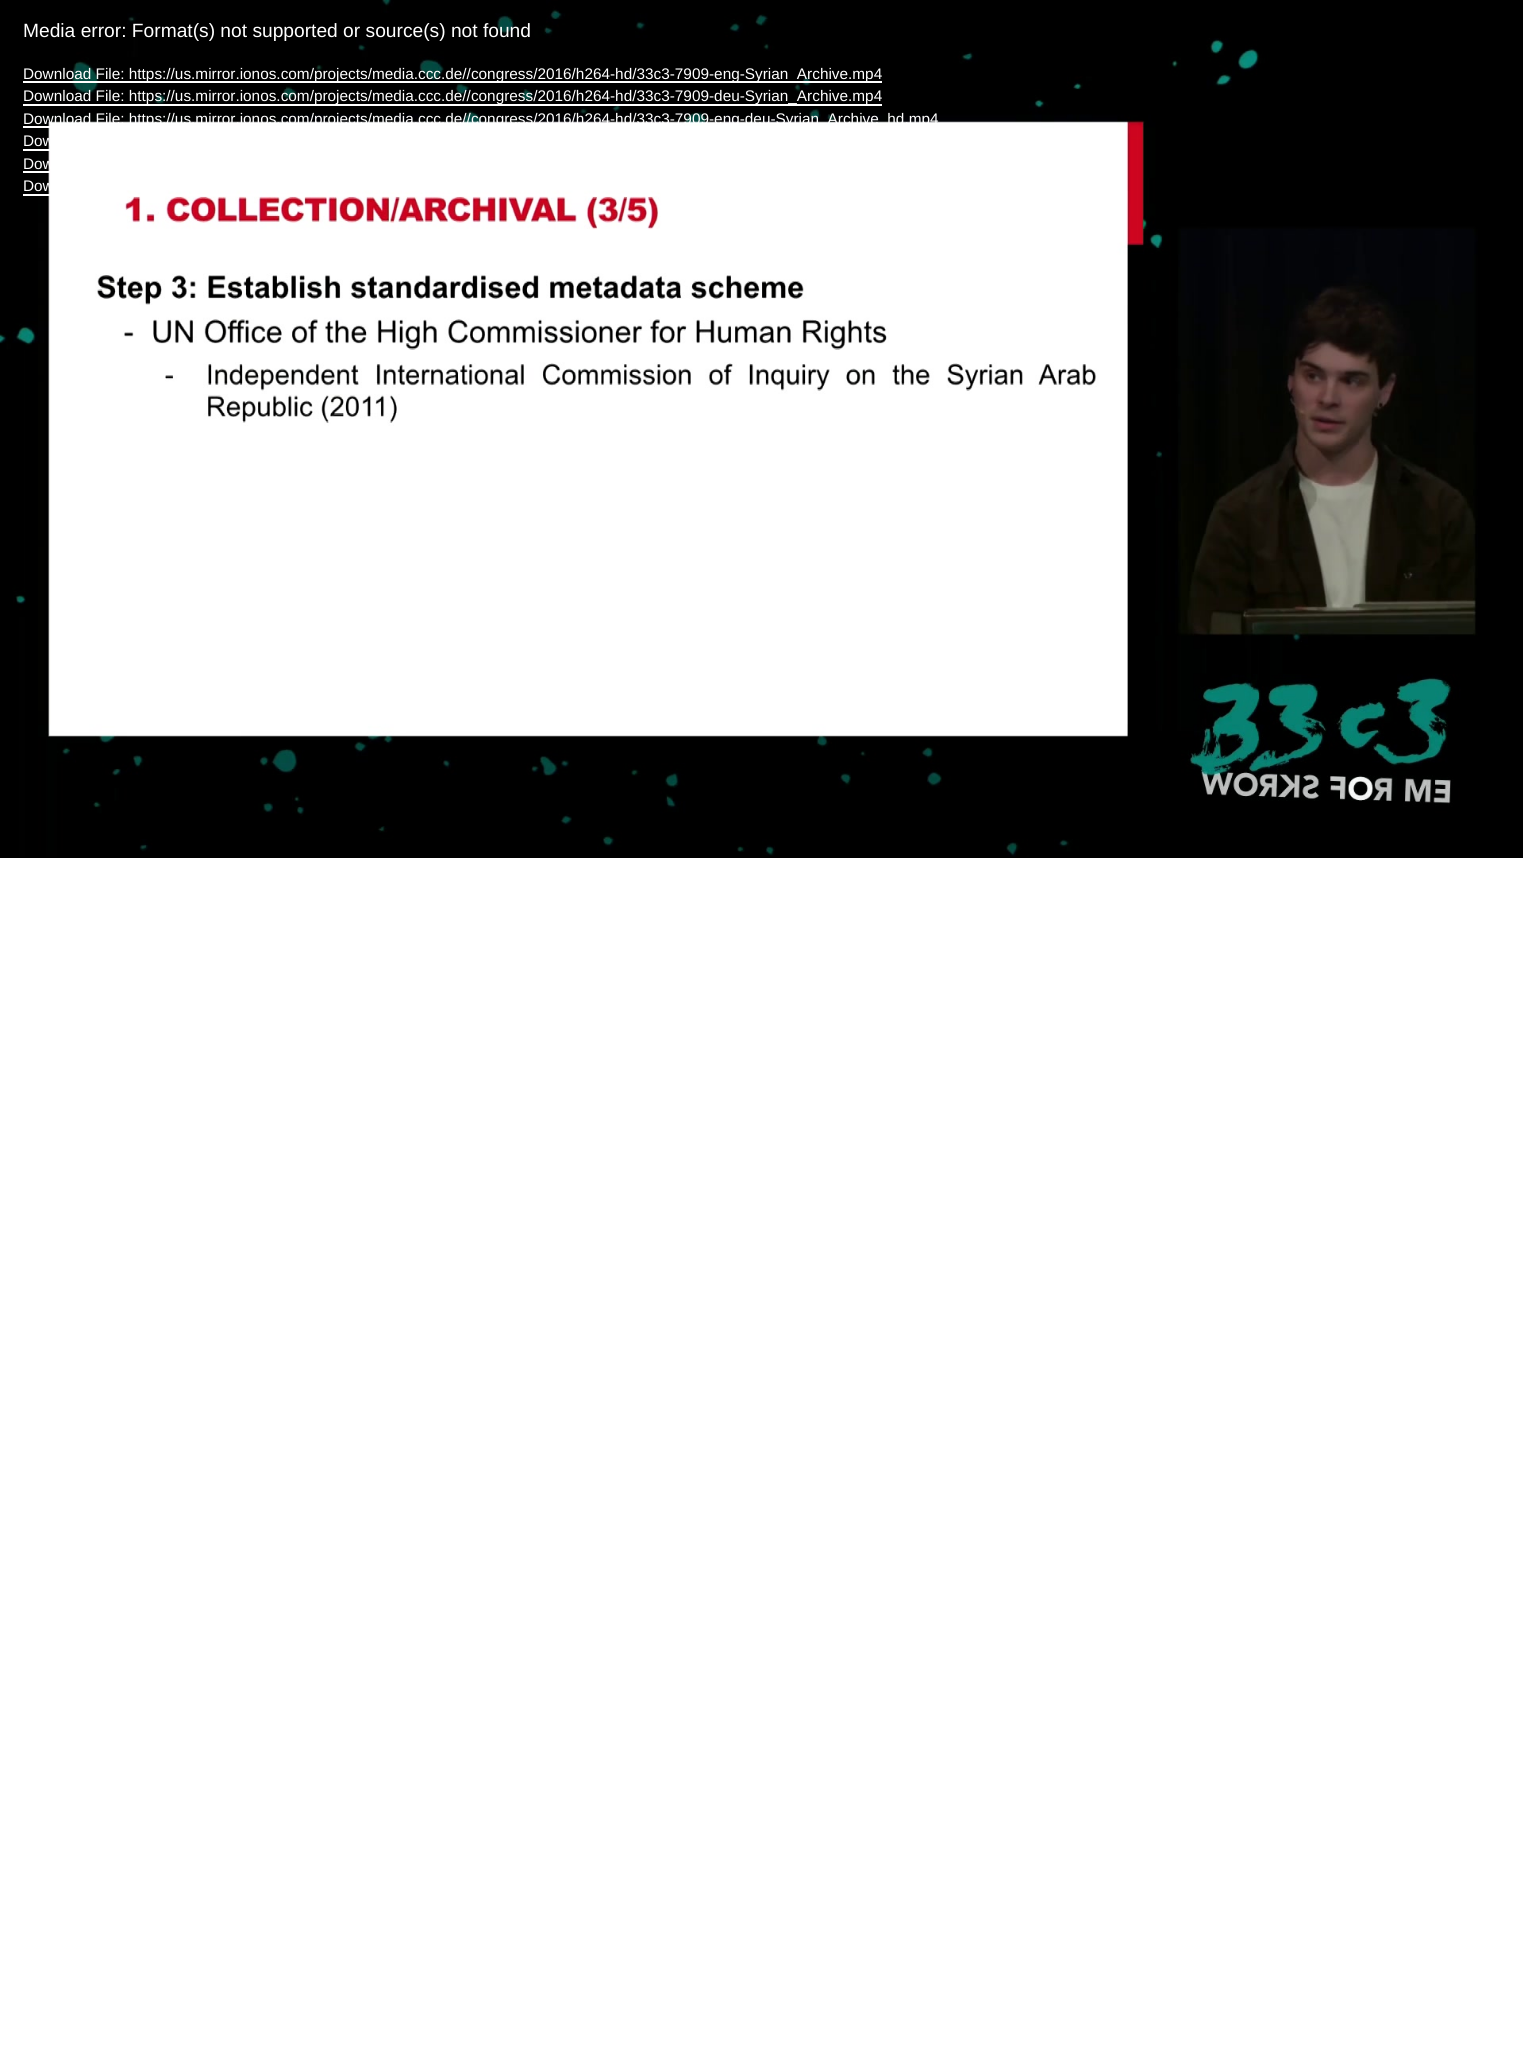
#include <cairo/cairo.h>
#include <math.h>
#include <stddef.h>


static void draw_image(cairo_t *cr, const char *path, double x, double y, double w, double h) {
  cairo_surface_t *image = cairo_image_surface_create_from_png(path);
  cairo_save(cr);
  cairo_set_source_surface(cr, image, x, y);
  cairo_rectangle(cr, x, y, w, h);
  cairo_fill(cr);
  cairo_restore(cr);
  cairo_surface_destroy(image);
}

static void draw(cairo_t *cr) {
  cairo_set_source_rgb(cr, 1, 1, 1);
  cairo_paint(cr);
  cairo_set_source_rgb(cr, 0, 0, 0);
  cairo_rectangle(cr, 0, 0, 1523, 858);
  cairo_fill(cr);
  draw_image(cr, "images/1.png", 0, 0, 1478, 857);
  cairo_set_source_rgb(cr, 1, 1, 1);
  cairo_rectangle(cr, 23, 81, 859, 2);
  cairo_fill(cr);
  cairo_rectangle(cr, 23, 104, 859, 2);
  cairo_fill(cr);
  cairo_rectangle(cr, 23, 126, 815, 2);
  cairo_fill(cr);
  cairo_rectangle(cr, 23, 149, 27, 2);
  cairo_fill(cr);
  cairo_rectangle(cr, 23, 171, 27, 2);
  cairo_fill(cr);
  cairo_rectangle(cr, 23, 194, 637, 2);
  cairo_fill(cr);
  cairo_select_font_face(cr, "Liberation Sans", CAIRO_FONT_SLANT_NORMAL, CAIRO_FONT_WEIGHT_NORMAL);
  cairo_set_font_size(cr, 19.2);
  cairo_move_to(cr, 23, 37);
  cairo_show_text(cr, "Media error: Format(s) not supported or source(s) not found");
  cairo_set_font_size(cr, 15.35);
  cairo_move_to(cr, 23, 79);
  cairo_show_text(cr, "Download File: https://us.mirror.ionos.com/projects/media.ccc.de//congress/2016/h264-hd/33c3-7909-eng-Syrian_Archive.mp4");
  cairo_move_to(cr, 23, 101);
  cairo_show_text(cr, "Download File: https://us.mirror.ionos.com/projects/media.ccc.de//congress/2016/h264-hd/33c3-7909-deu-Syrian_Archive.mp4");
  cairo_move_to(cr, 23, 124);
  cairo_show_text(cr, "Download File: https://us.mirror.ionos.com/projects/media.ccc.de//congress/2016/h264-hd/33c3-7909-eng-deu-Syrian_Archive_hd.mp4");
  cairo_move_to(cr, 23, 146);
  cairo_show_text(cr, "Dow");
  cairo_move_to(cr, 23, 169);
  cairo_show_text(cr, "Dow");
  cairo_move_to(cr, 23, 191);
  cairo_show_text(cr, "Dow");
}

int main(void) {
  cairo_surface_t *surface = cairo_image_surface_create(CAIRO_FORMAT_RGB24, 1523, 2064);
  cairo_t *cr = cairo_create(surface);
  cairo_font_options_t *options = cairo_font_options_create();
  cairo_font_options_set_hint_metrics(options, CAIRO_HINT_METRICS_OFF);
  cairo_font_options_set_hint_style(options, CAIRO_HINT_STYLE_NONE);
  cairo_set_font_options(cr, options);
  cairo_set_miter_limit(cr, 4);
  draw(cr);
  cairo_surface_write_to_png(surface, "out.png");
  cairo_font_options_destroy(options);
  cairo_destroy(cr);
  cairo_surface_destroy(surface);
  return 0;
}
